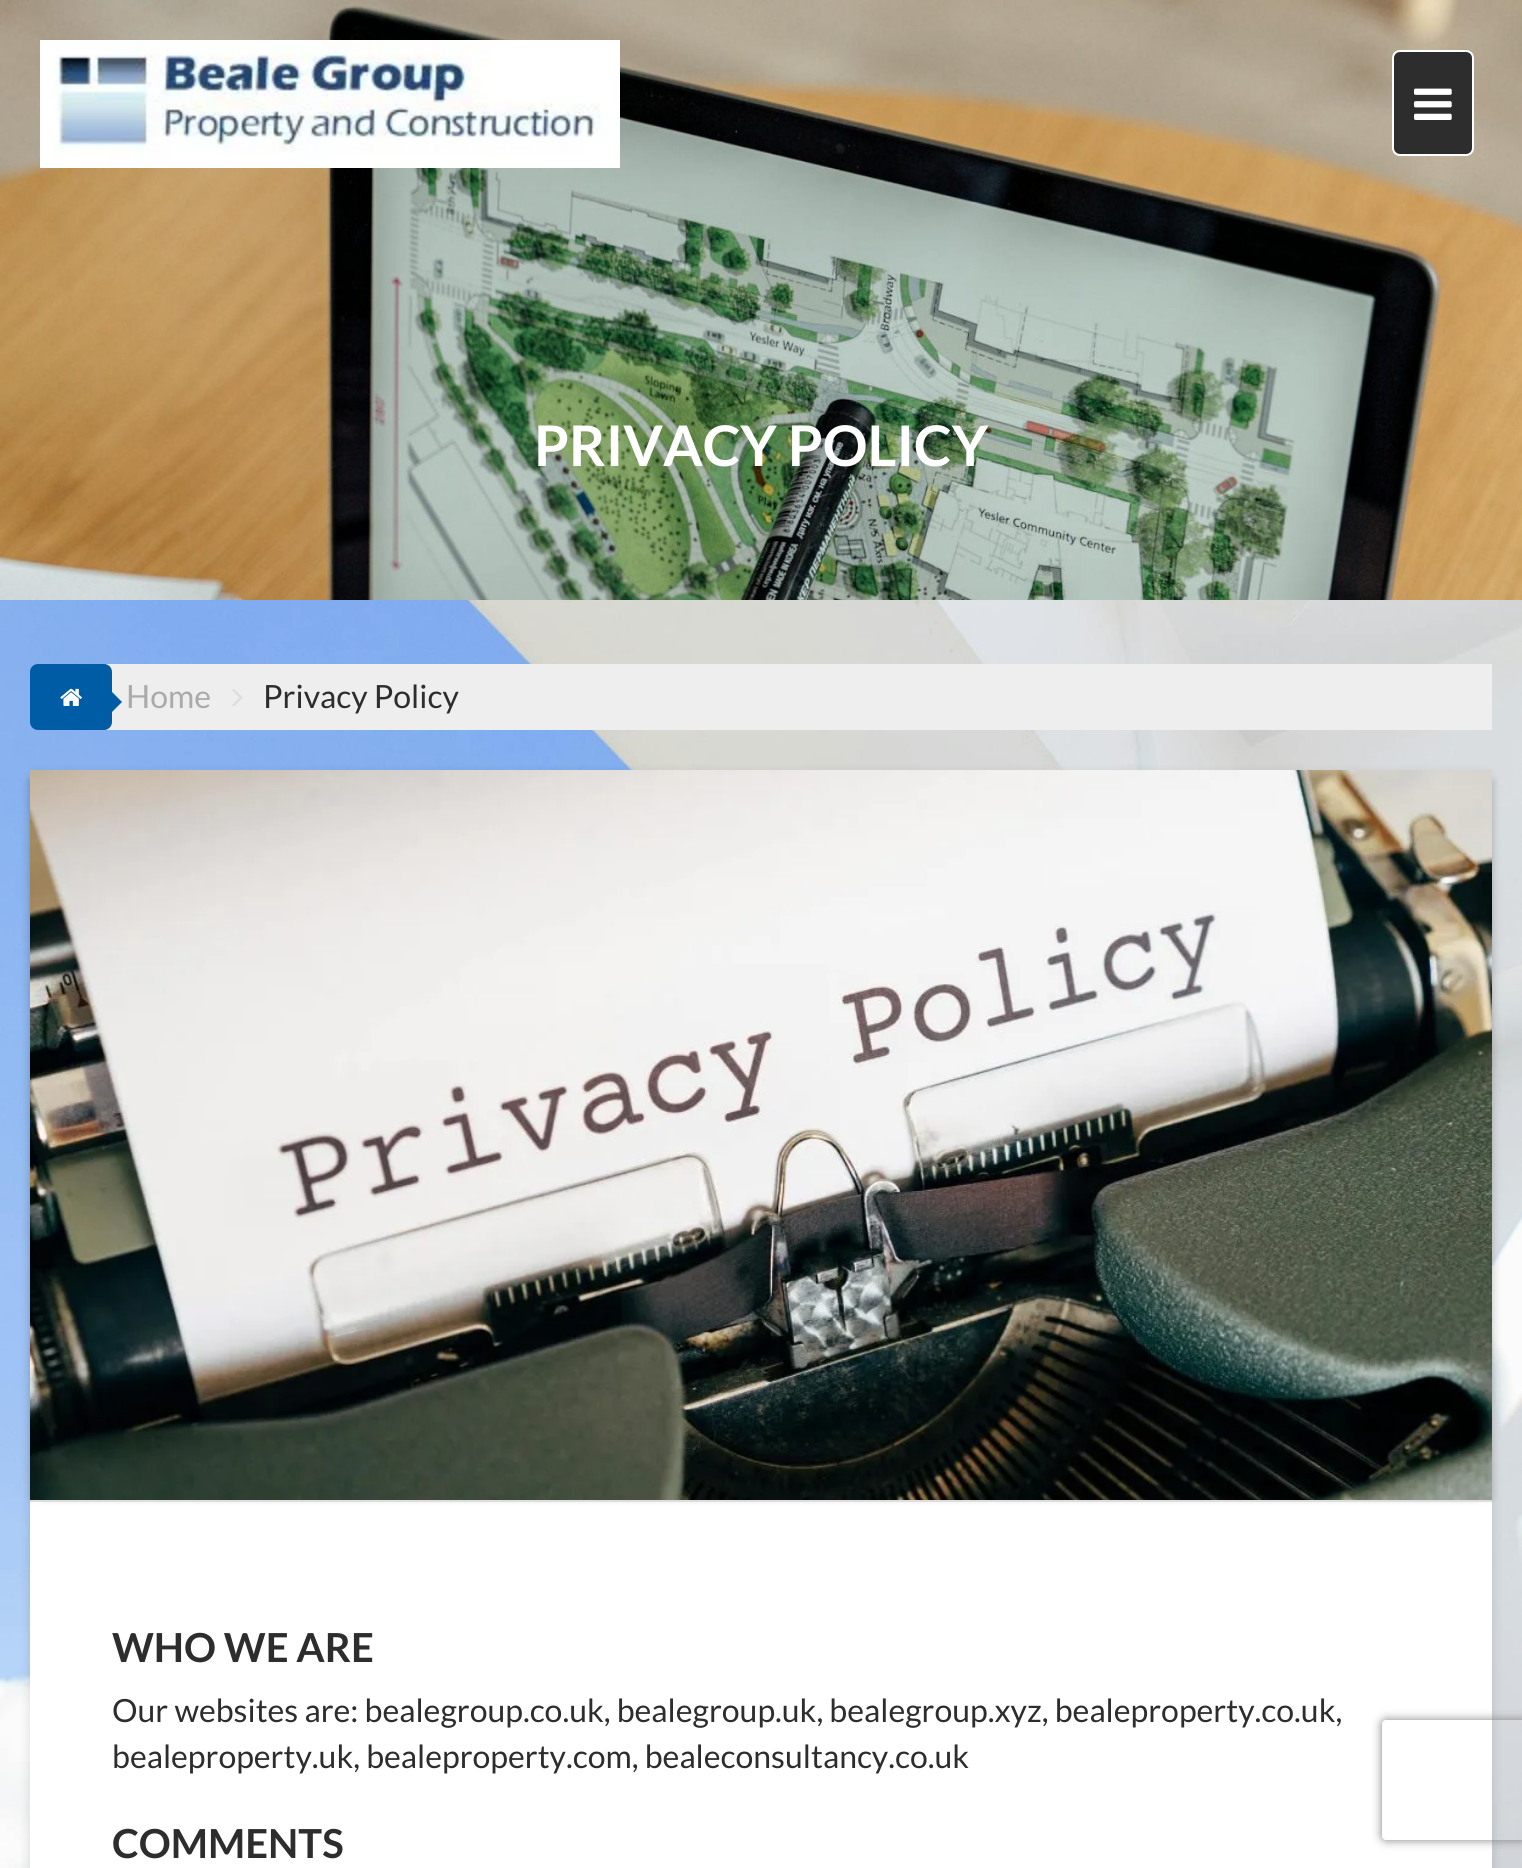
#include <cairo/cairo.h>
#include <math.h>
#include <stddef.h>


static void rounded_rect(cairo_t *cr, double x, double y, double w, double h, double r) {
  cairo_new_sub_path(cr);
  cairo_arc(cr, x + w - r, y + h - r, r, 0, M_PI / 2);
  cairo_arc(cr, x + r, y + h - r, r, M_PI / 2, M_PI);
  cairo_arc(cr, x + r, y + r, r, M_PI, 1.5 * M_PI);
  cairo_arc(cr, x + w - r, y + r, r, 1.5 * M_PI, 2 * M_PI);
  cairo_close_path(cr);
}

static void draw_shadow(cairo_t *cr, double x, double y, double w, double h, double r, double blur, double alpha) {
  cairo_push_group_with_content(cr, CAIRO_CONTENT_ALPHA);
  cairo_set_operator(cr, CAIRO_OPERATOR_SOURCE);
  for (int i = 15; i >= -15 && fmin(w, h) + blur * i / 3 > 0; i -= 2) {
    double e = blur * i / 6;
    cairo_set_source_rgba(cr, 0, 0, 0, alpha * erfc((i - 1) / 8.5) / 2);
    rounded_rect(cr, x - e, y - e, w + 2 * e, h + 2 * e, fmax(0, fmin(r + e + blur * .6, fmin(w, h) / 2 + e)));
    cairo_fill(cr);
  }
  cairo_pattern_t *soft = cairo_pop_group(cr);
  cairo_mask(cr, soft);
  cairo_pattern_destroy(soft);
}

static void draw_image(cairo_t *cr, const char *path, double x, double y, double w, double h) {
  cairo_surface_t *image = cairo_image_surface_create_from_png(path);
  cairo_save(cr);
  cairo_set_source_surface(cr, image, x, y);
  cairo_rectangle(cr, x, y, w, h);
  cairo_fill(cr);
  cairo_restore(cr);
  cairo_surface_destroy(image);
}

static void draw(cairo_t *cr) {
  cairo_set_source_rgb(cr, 1, 1, 1);
  cairo_paint(cr);
  draw_image(cr, "images/1.png", 0, 600, 1522, 1268);
  draw_image(cr, "images/4.png", 0, 0, 1522, 600);
  draw_image(cr, "images/2.png", 40, 40, 580, 128);
  cairo_set_source_rgb(cr, 45 / 255.0, 45 / 255.0, 45 / 255.0);
  rounded_rect(cr, 1393, 51, 80, 104, 7);
  cairo_fill_preserve(cr);
  cairo_set_source_rgb(cr, 1, 1, 1);
  cairo_stroke(cr);
  draw_image(cr, "images/3.png", 1414, 88, 38, 32);
  cairo_set_source_rgb(cr, 238 / 255.0, 238 / 255.0, 239 / 255.0);
  cairo_rectangle(cr, 106, 664, 1386, 66);
  cairo_fill(cr);
  cairo_set_source_rgb(cr, 0, 93 / 255.0, 165 / 255.0);
  rounded_rect(cr, 30, 664, 82, 66, 8);
  cairo_fill(cr);
  draw_image(cr, "images/5.png", 60, 688, 22, 18);
  cairo_new_path(cr);
  cairo_move_to(cr, 112, 712);
  cairo_line_to(cr, 112, 692);
  cairo_line_to(cr, 122, 702);
  cairo_close_path(cr);
  cairo_fill(cr);
  draw_image(cr, "images/6.png", 232, 689, 11, 18);
  cairo_set_source_rgb(cr, 0, 0, 0);
  draw_shadow(cr, 30, 774, 1462, 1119, 8, 5.5, 0.13);
  cairo_set_source_rgb(cr, 1, 1, 1);
  cairo_rectangle(cr, 30, 1502, 1462, 366);
  cairo_fill(cr);
  cairo_set_source_rgb(cr, 0, 0, 0);
  draw_shadow(cr, 30, 782, 1446, 716, 0, 4, 0.13);
  draw_shadow(cr, 46, 782, 1446, 716, 0, 4, 0.13);
  cairo_set_source_rgb(cr, 221 / 255.0, 221 / 255.0, 221 / 255.0);
  cairo_rectangle(cr, 30, 1500, 1462, 2);
  cairo_fill(cr);
  draw_image(cr, "images/7.png", 30, 770, 1462, 730);
  cairo_save(cr);
  cairo_set_fill_rule(cr, CAIRO_FILL_RULE_EVEN_ODD);
  cairo_new_path(cr);
  cairo_move_to(cr, 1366, 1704);
  cairo_line_to(cr, 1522, 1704);
  cairo_line_to(cr, 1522, 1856);
  cairo_line_to(cr, 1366, 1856);
  cairo_close_path(cr);
  cairo_move_to(cr, 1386, 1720);
  cairo_line_to(cr, 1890, 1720);
  cairo_curve_to(cr, 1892, 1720, 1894, 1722, 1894, 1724);
  cairo_line_to(cr, 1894, 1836);
  cairo_curve_to(cr, 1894, 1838, 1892, 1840, 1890, 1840);
  cairo_line_to(cr, 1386, 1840);
  cairo_curve_to(cr, 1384, 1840, 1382, 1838, 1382, 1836);
  cairo_line_to(cr, 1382, 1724);
  cairo_curve_to(cr, 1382, 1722, 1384, 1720, 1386, 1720);
  cairo_close_path(cr);
  cairo_clip(cr);
  cairo_set_source_rgb(cr, 128 / 255.0, 128 / 255.0, 128 / 255.0);
  draw_shadow(cr, 1382, 1720, 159, 120, 4, 5, 1);
  cairo_restore(cr);
  cairo_select_font_face(cr, "Lato", CAIRO_FONT_SLANT_NORMAL, CAIRO_FONT_WEIGHT_BOLD);
  cairo_set_font_size(cr, 56);
  cairo_set_source_rgb(cr, 1, 1, 1);
  cairo_move_to(cr, 534, 466);
  cairo_show_text(cr, "PRIVACY POLICY");
  cairo_select_font_face(cr, "Lato", CAIRO_FONT_SLANT_NORMAL, CAIRO_FONT_WEIGHT_NORMAL);
  cairo_set_font_size(cr, 32);
  cairo_set_source_rgb(cr, 170 / 255.0, 170 / 255.0, 170 / 255.0);
  cairo_move_to(cr, 126, 708);
  cairo_show_text(cr, "Home");
  cairo_set_source_rgb(cr, 45 / 255.0, 45 / 255.0, 45 / 255.0);
  cairo_move_to(cr, 263, 708);
  cairo_show_text(cr, "Privacy Policy");
  cairo_select_font_face(cr, "Lato", CAIRO_FONT_SLANT_NORMAL, CAIRO_FONT_WEIGHT_BOLD);
  cairo_set_font_size(cr, 40);
  cairo_move_to(cr, 112, 1662);
  cairo_show_text(cr, "WHO WE ARE");
  cairo_select_font_face(cr, "Lato", CAIRO_FONT_SLANT_NORMAL, CAIRO_FONT_WEIGHT_NORMAL);
  cairo_set_font_size(cr, 32);
  cairo_move_to(cr, 112, 1722);
  cairo_show_text(cr, "Our websites are: bealegroup.co.uk, bealegroup.uk, bealegroup.xyz, bealeproperty.co.uk,");
  cairo_move_to(cr, 112, 1768);
  cairo_show_text(cr, "bealeproperty.uk, bealeproperty.com, bealeconsultancy.co.uk");
  cairo_select_font_face(cr, "Lato", CAIRO_FONT_SLANT_NORMAL, CAIRO_FONT_WEIGHT_BOLD);
  cairo_set_font_size(cr, 40);
  cairo_move_to(cr, 112, 1858);
  cairo_show_text(cr, "COMMENTS");
}

int main(void) {
  cairo_surface_t *surface = cairo_image_surface_create(CAIRO_FORMAT_RGB24, 1522, 1868);
  cairo_t *cr = cairo_create(surface);
  cairo_font_options_t *options = cairo_font_options_create();
  cairo_font_options_set_hint_metrics(options, CAIRO_HINT_METRICS_OFF);
  cairo_font_options_set_hint_style(options, CAIRO_HINT_STYLE_NONE);
  cairo_set_font_options(cr, options);
  cairo_set_miter_limit(cr, 4);
  draw(cr);
  cairo_surface_write_to_png(surface, "out.png");
  cairo_font_options_destroy(options);
  cairo_destroy(cr);
  cairo_surface_destroy(surface);
  return 0;
}
